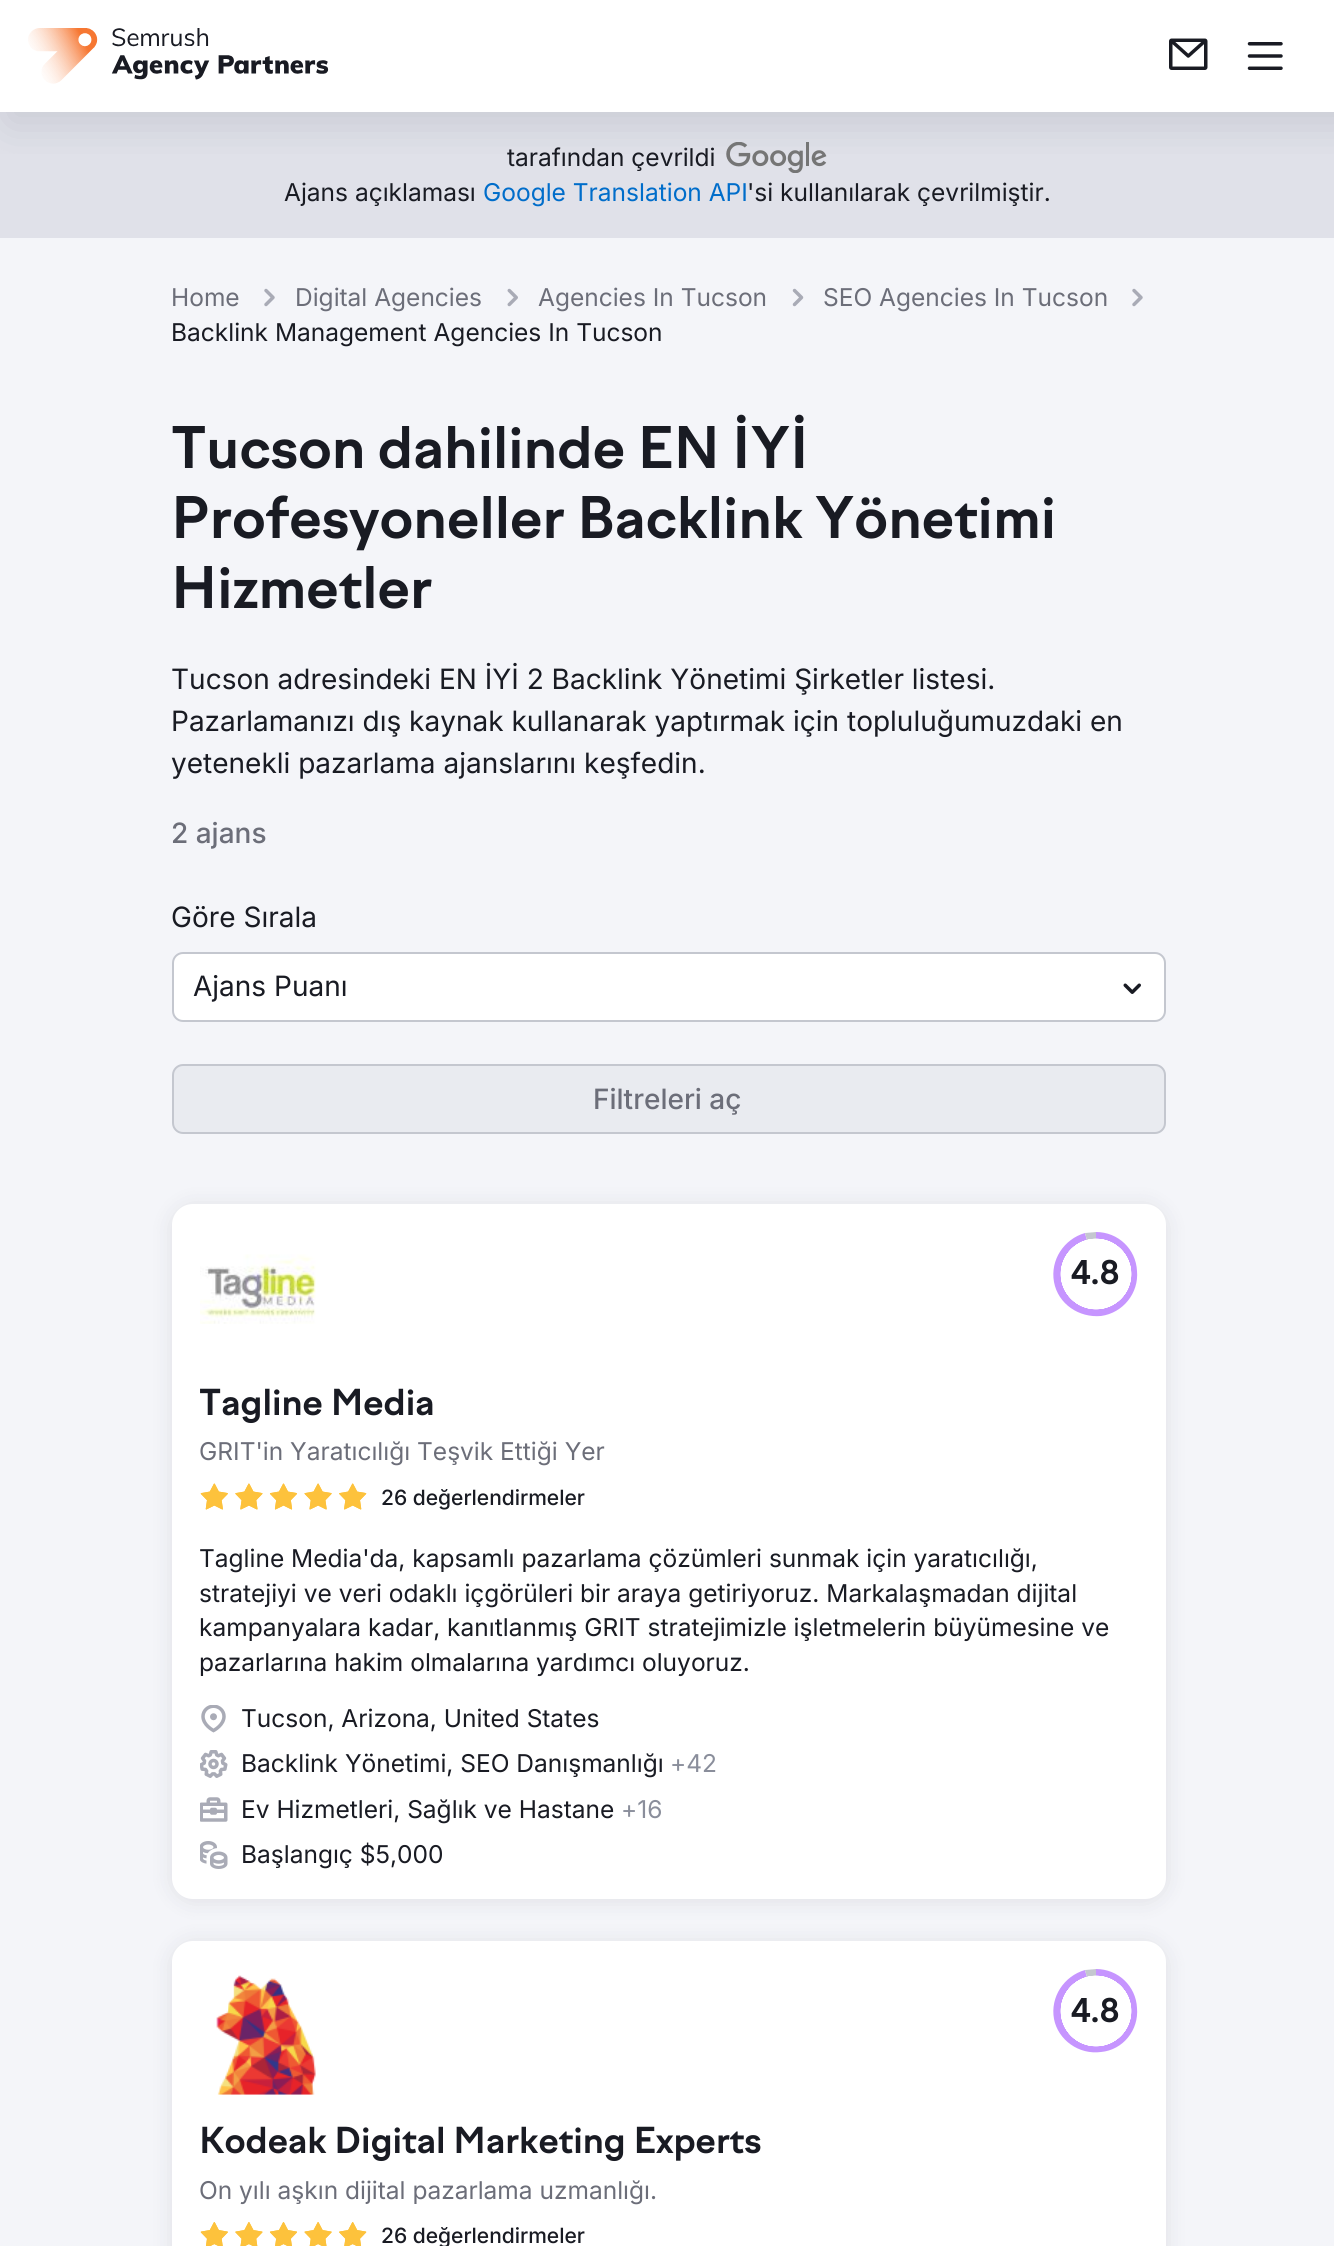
#include <cairo/cairo.h>
#include <math.h>
#include <stddef.h>


static void rounded_rect(cairo_t *cr, double x, double y, double w, double h, double r) {
  cairo_new_sub_path(cr);
  cairo_arc(cr, x + w - r, y + h - r, r, 0, M_PI / 2);
  cairo_arc(cr, x + r, y + h - r, r, M_PI / 2, M_PI);
  cairo_arc(cr, x + r, y + r, r, M_PI, 1.5 * M_PI);
  cairo_arc(cr, x + w - r, y + r, r, 1.5 * M_PI, 2 * M_PI);
  cairo_close_path(cr);
}

static void draw_shadow(cairo_t *cr, double x, double y, double w, double h, double r, double blur, double alpha) {
  cairo_push_group_with_content(cr, CAIRO_CONTENT_ALPHA);
  cairo_set_operator(cr, CAIRO_OPERATOR_SOURCE);
  for (int i = 15; i >= -15 && fmin(w, h) + blur * i / 3 > 0; i -= 2) {
    double e = blur * i / 6;
    cairo_set_source_rgba(cr, 0, 0, 0, alpha * erfc((i - 1) / 8.5) / 2);
    rounded_rect(cr, x - e, y - e, w + 2 * e, h + 2 * e, fmax(0, fmin(r + e + blur * .6, fmin(w, h) / 2 + e)));
    cairo_fill(cr);
  }
  cairo_pattern_t *soft = cairo_pop_group(cr);
  cairo_mask(cr, soft);
  cairo_pattern_destroy(soft);
}

static void draw_image(cairo_t *cr, const char *path, double x, double y, double w, double h) {
  cairo_surface_t *image = cairo_image_surface_create_from_png(path);
  cairo_save(cr);
  cairo_set_source_surface(cr, image, x, y);
  cairo_rectangle(cr, x, y, w, h);
  cairo_fill(cr);
  cairo_restore(cr);
  cairo_surface_destroy(image);
}

static void draw(cairo_t *cr) {
  cairo_pattern_t *gradient;
  cairo_set_source_rgb(cr, 1, 1, 1);
  cairo_paint(cr);
  cairo_set_source_rgb(cr, 224 / 255.0, 225 / 255.0, 233 / 255.0);
  cairo_rectangle(cr, 0, 112, 1334, 126);
  cairo_fill(cr);
  draw_image(cr, "images/4.png", 726, 142, 101, 31);
  cairo_save(cr);
  cairo_rectangle(cr, 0, 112, 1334, 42);
  cairo_clip(cr);
  cairo_set_source_rgb(cr, 137 / 255.0, 141 / 255.0, 154 / 255.0);
  draw_shadow(cr, 9, 9, 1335, 112, 0, 22, 0.3);
  cairo_restore(cr);
  draw_image(cr, "images/1.png", 28, 28, 301, 56);
  draw_image(cr, "images/2.png", 1169, 38, 39, 32);
  draw_image(cr, "images/3.png", 1247, 42, 36, 28);
  cairo_set_source_rgb(cr, 244 / 255.0, 245 / 255.0, 249 / 255.0);
  cairo_rectangle(cr, 0, 238, 1334, 2008);
  cairo_fill(cr);
  draw_image(cr, "images/5.png", 264, 288, 11, 19);
  draw_image(cr, "images/6.png", 507, 288, 11, 19);
  draw_image(cr, "images/7.png", 792, 288, 12, 19);
  draw_image(cr, "images/5.png", 1132, 288, 11, 19);
  cairo_set_source_rgb(cr, 1, 1, 1);
  rounded_rect(cr, 173, 953, 992, 68, 10);
  cairo_fill_preserve(cr);
  cairo_set_source_rgb(cr, 196 / 255.0, 199 / 255.0, 207 / 255.0);
  cairo_stroke(cr);
  draw_image(cr, "images/8.png", 1123, 983, 18, 11);
  cairo_set_source_rgb(cr, 233 / 255.0, 235 / 255.0, 240 / 255.0);
  rounded_rect(cr, 173, 1065, 992, 68, 10);
  cairo_fill_preserve(cr);
  cairo_set_source_rgb(cr, 196 / 255.0, 199 / 255.0, 207 / 255.0);
  cairo_stroke(cr);
  cairo_set_source_rgb(cr, 25 / 255.0, 27 / 255.0, 35 / 255.0);
  draw_shadow(cr, 172, 1206, 994, 695, 21, 10.5, 0.1);
  cairo_set_source_rgb(cr, 1, 1, 1);
  rounded_rect(cr, 172, 1204, 994, 695, 21);
  cairo_fill(cr);
  draw_image(cr, "images/9.png", 200, 1254, 116, 70);
  cairo_set_source_rgb(cr, 198 / 255.0, 149 / 255.0, 1);
  cairo_new_path(cr);
  cairo_move_to(cr, 1096, 1274);
  cairo_line_to(cr, 1096, 1232);
  cairo_curve_to(cr, 1118, 1232, 1136, 1249, 1137, 1271);
  cairo_curve_to(cr, 1139, 1293, 1123, 1313, 1101, 1316);
  cairo_curve_to(cr, 1079, 1318, 1058, 1304, 1054, 1282);
  cairo_curve_to(cr, 1050, 1260, 1064, 1239, 1085, 1233);
  cairo_close_path(cr);
  cairo_fill(cr);
  cairo_set_source_rgb(cr, 196 / 255.0, 199 / 255.0, 207 / 255.0);
  cairo_new_path(cr);
  cairo_move_to(cr, 1096, 1274);
  cairo_line_to(cr, 1085, 1233);
  cairo_line_to(cr, 1096, 1232);
  cairo_close_path(cr);
  cairo_fill(cr);
  gradient = cairo_pattern_create_radial(1096, 1274, 0, 1096, 1274, 42);
  cairo_pattern_add_color_stop_rgba(gradient, 0.84, 1, 1, 1, 1);
  cairo_pattern_add_color_stop_rgba(gradient, 0.85, 1, 1, 1, 0);
  cairo_pattern_add_color_stop_rgba(gradient, 1, 0, 0, 0, 0);
  cairo_set_source(cr, gradient);
  cairo_pattern_destroy(gradient);
  cairo_rectangle(cr, 1060, 1238, 72, 72);
  cairo_fill(cr);
  draw_image(cr, "images/10.png", 200, 1483, 167, 27);
  draw_image(cr, "images/11.png", 201, 1705, 25, 28);
  draw_image(cr, "images/12.png", 200, 1750, 28, 28);
  draw_image(cr, "images/13.png", 200, 1797, 28, 25);
  draw_image(cr, "images/14.png", 200, 1841, 28, 28);
  cairo_set_source_rgb(cr, 25 / 255.0, 27 / 255.0, 35 / 255.0);
  draw_shadow(cr, 172, 1943, 994, 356, 21, 10.5, 0.1);
  cairo_set_source_rgb(cr, 1, 1, 1);
  rounded_rect(cr, 172, 1941, 994, 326, 21);
  cairo_fill(cr);
  draw_image(cr, "images/15.png", 216, 1975, 100, 120);
  cairo_set_source_rgb(cr, 198 / 255.0, 149 / 255.0, 1);
  cairo_new_path(cr);
  cairo_move_to(cr, 1096, 2011);
  cairo_line_to(cr, 1096, 1969);
  cairo_curve_to(cr, 1118, 1969, 1136, 1986, 1137, 2008);
  cairo_curve_to(cr, 1139, 2030, 1123, 2050, 1101, 2052);
  cairo_curve_to(cr, 1079, 2055, 1058, 2040, 1054, 2019);
  cairo_curve_to(cr, 1050, 1997, 1064, 1976, 1085, 1970);
  cairo_close_path(cr);
  cairo_fill(cr);
  cairo_set_source_rgb(cr, 196 / 255.0, 199 / 255.0, 207 / 255.0);
  cairo_new_path(cr);
  cairo_move_to(cr, 1096, 2011);
  cairo_line_to(cr, 1085, 1970);
  cairo_line_to(cr, 1096, 1969);
  cairo_close_path(cr);
  cairo_fill(cr);
  gradient = cairo_pattern_create_radial(1096, 2011, 0, 1096, 2011, 42);
  cairo_pattern_add_color_stop_rgba(gradient, 0.84, 1, 1, 1, 1);
  cairo_pattern_add_color_stop_rgba(gradient, 0.85, 1, 1, 1, 0);
  cairo_pattern_add_color_stop_rgba(gradient, 1, 0, 0, 0, 0);
  cairo_set_source(cr, gradient);
  cairo_pattern_destroy(gradient);
  cairo_rectangle(cr, 1060, 1975, 72, 72);
  cairo_fill(cr);
  draw_image(cr, "images/16.png", 200, 2222, 167, 24);
  cairo_select_font_face(cr, "Inter", CAIRO_FONT_SLANT_NORMAL, CAIRO_FONT_WEIGHT_NORMAL);
  cairo_set_font_size(cr, 24.5);
  cairo_set_source_rgb(cr, 25 / 255.0, 27 / 255.0, 35 / 255.0);
  cairo_move_to(cr, 507, 166);
  cairo_show_text(cr, "tarafından çevrildi");
  cairo_move_to(cr, 284, 201);
  cairo_show_text(cr, "Ajans açıklaması");
  cairo_set_source_rgb(cr, 0, 109 / 255.0, 202 / 255.0);
  cairo_move_to(cr, 483, 201);
  cairo_show_text(cr, "Google Translation API");
  cairo_set_source_rgb(cr, 25 / 255.0, 27 / 255.0, 35 / 255.0);
  cairo_move_to(cr, 747, 201);
  cairo_show_text(cr, "'si kullanılarak çevrilmiştir.");
  cairo_set_source_rgb(cr, 108 / 255.0, 110 / 255.0, 121 / 255.0);
  cairo_move_to(cr, 171, 306);
  cairo_show_text(cr, "Home");
  cairo_move_to(cr, 295, 306);
  cairo_show_text(cr, "Digital Agencies");
  cairo_move_to(cr, 538, 306);
  cairo_show_text(cr, "Agencies In Tucson");
  cairo_move_to(cr, 823, 306);
  cairo_show_text(cr, "SEO Agencies In Tucson");
  cairo_set_source_rgb(cr, 25 / 255.0, 27 / 255.0, 35 / 255.0);
  cairo_move_to(cr, 171, 341);
  cairo_show_text(cr, "Backlink Management Agencies In Tucson");
  cairo_select_font_face(cr, "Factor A", CAIRO_FONT_SLANT_NORMAL, CAIRO_FONT_WEIGHT_BOLD);
  cairo_set_font_size(cr, 56);
  cairo_move_to(cr, 171, 468);
  cairo_show_text(cr, "Tucson dahilinde EN İYİ");
  cairo_move_to(cr, 171, 538);
  cairo_show_text(cr, "Profesyoneller Backlink Yönetimi");
  cairo_move_to(cr, 171, 608);
  cairo_show_text(cr, "Hizmetler");
  cairo_select_font_face(cr, "Inter", CAIRO_FONT_SLANT_NORMAL, CAIRO_FONT_WEIGHT_NORMAL);
  cairo_set_font_size(cr, 28);
  cairo_move_to(cr, 171, 689);
  cairo_show_text(cr, "Tucson adresindeki EN İYİ 2 Backlink Yönetimi Şirketler listesi.");
  cairo_move_to(cr, 171, 731);
  cairo_show_text(cr, "Pazarlamanızı dış kaynak kullanarak yaptırmak için topluluğumuzdaki en");
  cairo_move_to(cr, 171, 773);
  cairo_show_text(cr, "yetenekli pazarlama ajanslarını keşfedin.");
  cairo_select_font_face(cr, "Inter Medium", CAIRO_FONT_SLANT_NORMAL, CAIRO_FONT_WEIGHT_NORMAL);
  cairo_set_source_rgb(cr, 108 / 255.0, 110 / 255.0, 121 / 255.0);
  cairo_move_to(cr, 171, 843);
  cairo_show_text(cr, "2 ajans");
  cairo_select_font_face(cr, "Inter", CAIRO_FONT_SLANT_NORMAL, CAIRO_FONT_WEIGHT_NORMAL);
  cairo_set_source_rgb(cr, 25 / 255.0, 27 / 255.0, 35 / 255.0);
  cairo_move_to(cr, 171, 927);
  cairo_show_text(cr, "Göre Sırala");
  cairo_move_to(cr, 193, 996);
  cairo_show_text(cr, "Ajans Puanı");
  cairo_select_font_face(cr, "Inter Medium", CAIRO_FONT_SLANT_NORMAL, CAIRO_FONT_WEIGHT_NORMAL);
  cairo_set_source_rgb(cr, 108 / 255.0, 110 / 255.0, 121 / 255.0);
  cairo_move_to(cr, 593, 1109);
  cairo_show_text(cr, "Filtreleri aç");
  cairo_select_font_face(cr, "Factor A", CAIRO_FONT_SLANT_NORMAL, CAIRO_FONT_WEIGHT_BOLD);
  cairo_set_font_size(cr, 32);
  cairo_set_source_rgb(cr, 25 / 255.0, 27 / 255.0, 35 / 255.0);
  cairo_move_to(cr, 1071, 1284);
  cairo_show_text(cr, "4.8");
  cairo_set_font_size(cr, 35);
  cairo_move_to(cr, 199, 1415);
  cairo_show_text(cr, "Tagline Media");
  cairo_select_font_face(cr, "Inter", CAIRO_FONT_SLANT_NORMAL, CAIRO_FONT_WEIGHT_NORMAL);
  cairo_set_font_size(cr, 24.5);
  cairo_set_source_rgb(cr, 108 / 255.0, 110 / 255.0, 121 / 255.0);
  cairo_move_to(cr, 199, 1460);
  cairo_show_text(cr, "GRIT'in Yaratıcılığı Teşvik Ettiği Yer");
  cairo_select_font_face(cr, "Inter Medium", CAIRO_FONT_SLANT_NORMAL, CAIRO_FONT_WEIGHT_NORMAL);
  cairo_set_font_size(cr, 21);
  cairo_set_source_rgb(cr, 25 / 255.0, 27 / 255.0, 35 / 255.0);
  cairo_move_to(cr, 381, 1505);
  cairo_show_text(cr, "26 değerlendirmeler");
  cairo_select_font_face(cr, "Inter", CAIRO_FONT_SLANT_NORMAL, CAIRO_FONT_WEIGHT_NORMAL);
  cairo_set_font_size(cr, 24.5);
  cairo_move_to(cr, 199, 1567);
  cairo_show_text(cr, "Tagline Media'da, kapsamlı pazarlama çözümleri sunmak için yaratıcılığı,");
  cairo_move_to(cr, 199, 1602);
  cairo_show_text(cr, "stratejiyi ve veri odaklı içgörüleri bir araya getiriyoruz. Markalaşmadan dijital");
  cairo_move_to(cr, 199, 1636);
  cairo_show_text(cr, "kampanyalara kadar, kanıtlanmış GRIT stratejimizle işletmelerin büyümesine ve");
  cairo_move_to(cr, 199, 1671);
  cairo_show_text(cr, "pazarlarına hakim olmalarına yardımcı oluyoruz.");
  cairo_move_to(cr, 241, 1727);
  cairo_show_text(cr, "Tucson, Arizona, United States");
  cairo_move_to(cr, 241, 1772);
  cairo_show_text(cr, "Backlink Yönetimi, SEO Danışmanlığı");
  cairo_set_source_rgb(cr, 138 / 255.0, 142 / 255.0, 155 / 255.0);
  cairo_move_to(cr, 670, 1772);
  cairo_show_text(cr, "+42");
  cairo_set_source_rgb(cr, 25 / 255.0, 27 / 255.0, 35 / 255.0);
  cairo_move_to(cr, 241, 1818);
  cairo_show_text(cr, "Ev Hizmetleri, Sağlık ve Hastane");
  cairo_set_source_rgb(cr, 138 / 255.0, 142 / 255.0, 155 / 255.0);
  cairo_move_to(cr, 621, 1818);
  cairo_show_text(cr, "+16");
  cairo_set_source_rgb(cr, 25 / 255.0, 27 / 255.0, 35 / 255.0);
  cairo_move_to(cr, 241, 1863);
  cairo_show_text(cr, "Başlangıç $5,000");
  cairo_select_font_face(cr, "Factor A", CAIRO_FONT_SLANT_NORMAL, CAIRO_FONT_WEIGHT_BOLD);
  cairo_set_font_size(cr, 32);
  cairo_move_to(cr, 1071, 2022);
  cairo_show_text(cr, "4.8");
  cairo_set_font_size(cr, 35);
  cairo_move_to(cr, 199, 2153);
  cairo_show_text(cr, "Kodeak Digital Marketing Experts");
  cairo_select_font_face(cr, "Inter", CAIRO_FONT_SLANT_NORMAL, CAIRO_FONT_WEIGHT_NORMAL);
  cairo_set_font_size(cr, 24.5);
  cairo_set_source_rgb(cr, 108 / 255.0, 110 / 255.0, 121 / 255.0);
  cairo_move_to(cr, 199, 2199);
  cairo_show_text(cr, "On yılı aşkın dijital pazarlama uzmanlığı.");
  cairo_select_font_face(cr, "Inter Medium", CAIRO_FONT_SLANT_NORMAL, CAIRO_FONT_WEIGHT_NORMAL);
  cairo_set_font_size(cr, 21);
  cairo_set_source_rgb(cr, 25 / 255.0, 27 / 255.0, 35 / 255.0);
  cairo_move_to(cr, 381, 2243);
  cairo_show_text(cr, "26 değerlendirmeler");
}

int main(void) {
  cairo_surface_t *surface = cairo_image_surface_create(CAIRO_FORMAT_RGB24, 1334, 2246);
  cairo_t *cr = cairo_create(surface);
  cairo_font_options_t *options = cairo_font_options_create();
  cairo_font_options_set_hint_metrics(options, CAIRO_HINT_METRICS_OFF);
  cairo_font_options_set_hint_style(options, CAIRO_HINT_STYLE_NONE);
  cairo_set_font_options(cr, options);
  cairo_set_miter_limit(cr, 4);
  draw(cr);
  cairo_surface_write_to_png(surface, "out.png");
  cairo_font_options_destroy(options);
  cairo_destroy(cr);
  cairo_surface_destroy(surface);
  return 0;
}
